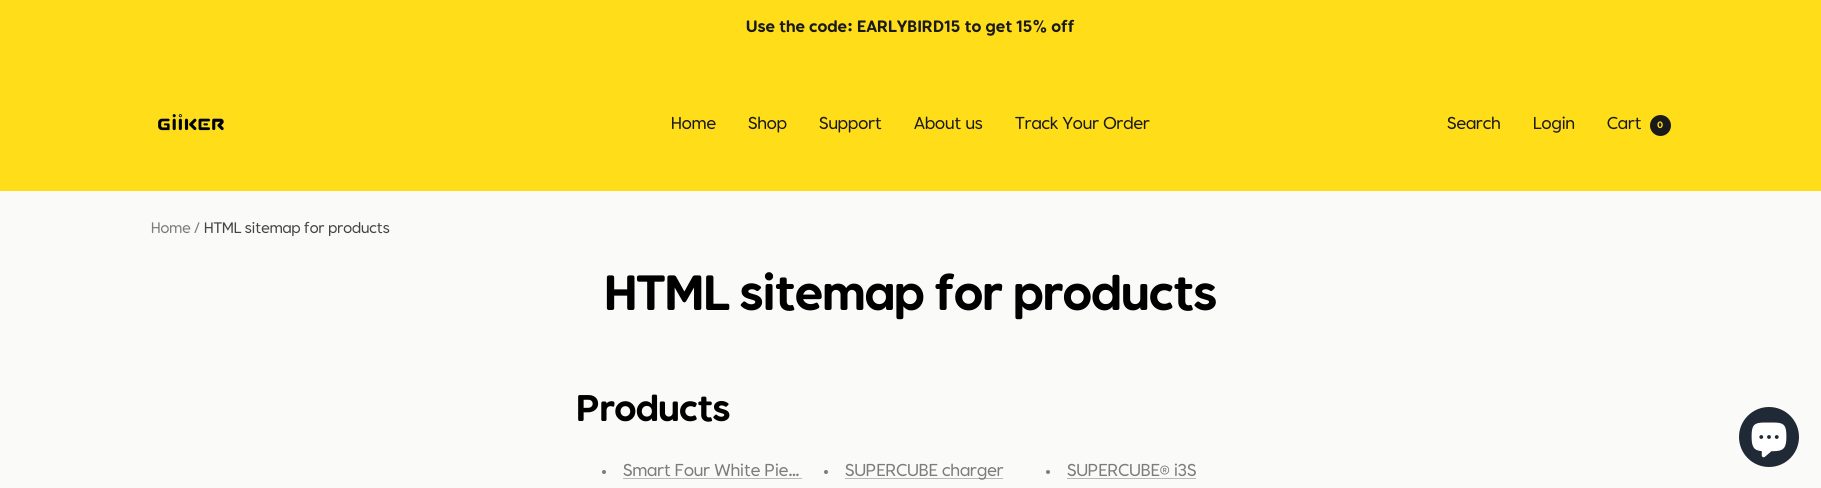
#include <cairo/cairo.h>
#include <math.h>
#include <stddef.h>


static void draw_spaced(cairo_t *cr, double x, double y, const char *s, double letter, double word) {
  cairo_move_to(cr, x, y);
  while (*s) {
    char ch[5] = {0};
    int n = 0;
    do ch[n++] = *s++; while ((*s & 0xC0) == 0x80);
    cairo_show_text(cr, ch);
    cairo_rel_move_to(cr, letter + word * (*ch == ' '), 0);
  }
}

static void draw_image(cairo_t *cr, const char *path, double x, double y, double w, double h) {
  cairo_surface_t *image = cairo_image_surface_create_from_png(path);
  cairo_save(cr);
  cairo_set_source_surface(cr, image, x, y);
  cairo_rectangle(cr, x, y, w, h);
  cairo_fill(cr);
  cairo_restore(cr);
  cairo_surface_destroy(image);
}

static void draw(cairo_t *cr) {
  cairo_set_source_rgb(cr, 250 / 255.0, 250 / 255.0, 249 / 255.0);
  cairo_paint(cr);
  cairo_set_source_rgb(cr, 1, 221 / 255.0, 25 / 255.0);
  cairo_rectangle(cr, 0, 0, 1821, 191);
  cairo_fill(cr);
  draw_image(cr, "images/1.png", 151, 112, 76, 20);
  cairo_set_source_rgb(cr, 26 / 255.0, 26 / 255.0, 26 / 255.0);
  cairo_arc(cr, 1660.5, 125.5, 10.5, 0, 2 * M_PI);
  cairo_fill(cr);
  cairo_set_source_rgb(cr, 124 / 255.0, 124 / 255.0, 124 / 255.0);
  cairo_arc(cr, 604, 472, 2, 0, 2 * M_PI);
  cairo_fill(cr);
  cairo_set_source_rgb(cr, 186 / 255.0, 187 / 255.0, 185 / 255.0);
  cairo_rectangle(cr, 623, 478, 179, 1);
  cairo_fill(cr);
  cairo_set_source_rgb(cr, 124 / 255.0, 124 / 255.0, 124 / 255.0);
  cairo_arc(cr, 826, 472, 2, 0, 2 * M_PI);
  cairo_fill(cr);
  cairo_set_source_rgb(cr, 186 / 255.0, 187 / 255.0, 185 / 255.0);
  cairo_rectangle(cr, 845, 478, 158, 1);
  cairo_fill(cr);
  cairo_set_source_rgb(cr, 124 / 255.0, 124 / 255.0, 124 / 255.0);
  cairo_arc(cr, 1048, 472, 2, 0, 2 * M_PI);
  cairo_fill(cr);
  cairo_set_source_rgb(cr, 186 / 255.0, 187 / 255.0, 185 / 255.0);
  cairo_rectangle(cr, 1067, 478, 129, 1);
  cairo_fill(cr);
  cairo_set_source_rgb(cr, 32 / 255.0, 42 / 255.0, 54 / 255.0);
  cairo_arc(cr, 1769, 437, 30, 0, 2 * M_PI);
  cairo_fill(cr);
  draw_image(cr, "images/2.png", 1751, 422, 36, 36);
  cairo_select_font_face(cr, "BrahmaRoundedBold", CAIRO_FONT_SLANT_NORMAL, CAIRO_FONT_WEIGHT_BOLD);
  cairo_set_font_size(cr, 16);
  cairo_set_source_rgb(cr, 26 / 255.0, 26 / 255.0, 26 / 255.0);
  cairo_move_to(cr, 746, 32);
  cairo_show_text(cr, "Use the code: EARLYBIRD15 to get 15% off");
  cairo_select_font_face(cr, "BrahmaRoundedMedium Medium", CAIRO_FONT_SLANT_NORMAL, CAIRO_FONT_WEIGHT_NORMAL);
  cairo_set_font_size(cr, 17);
  cairo_move_to(cr, 671, 129);
  cairo_show_text(cr, "Home");
  cairo_move_to(cr, 748, 129);
  cairo_show_text(cr, "Shop");
  cairo_move_to(cr, 819, 129);
  cairo_show_text(cr, "Support");
  cairo_move_to(cr, 914, 129);
  cairo_show_text(cr, "About us");
  cairo_move_to(cr, 1015, 129);
  cairo_show_text(cr, "Track Your Order");
  cairo_move_to(cr, 1447, 129);
  cairo_show_text(cr, "Search");
  cairo_move_to(cr, 1533, 129);
  cairo_show_text(cr, "Login");
  cairo_move_to(cr, 1607, 129);
  cairo_show_text(cr, "Cart");
  cairo_select_font_face(cr, "BrahmaRoundedBold", CAIRO_FONT_SLANT_NORMAL, CAIRO_FONT_WEIGHT_BOLD);
  cairo_set_font_size(cr, 9);
  cairo_set_source_rgb(cr, 1, 221 / 255.0, 25 / 255.0);
  cairo_move_to(cr, 1657, 128);
  cairo_show_text(cr, "0");
  cairo_select_font_face(cr, "BrahmaRoundedMedium Medium", CAIRO_FONT_SLANT_NORMAL, CAIRO_FONT_WEIGHT_NORMAL);
  cairo_set_font_size(cr, 15);
  cairo_set_source_rgb(cr, 124 / 255.0, 124 / 255.0, 124 / 255.0);
  cairo_move_to(cr, 151, 233);
  cairo_show_text(cr, "Home");
  cairo_move_to(cr, 194, 233);
  cairo_show_text(cr, "/");
  cairo_set_source_rgb(cr, 68 / 255.0, 69 / 255.0, 67 / 255.0);
  cairo_move_to(cr, 204, 233);
  cairo_show_text(cr, "HTML sitemap for products");
  cairo_select_font_face(cr, "BrahmaRoundedBold", CAIRO_FONT_SLANT_NORMAL, CAIRO_FONT_WEIGHT_BOLD);
  cairo_set_font_size(cr, 48);
  cairo_set_source_rgb(cr, 0, 0, 0);
  draw_spaced(cr, 604, 310, "HTML sitemap for products", -1, 0);
  cairo_set_font_size(cr, 36);
  draw_spaced(cr, 576, 421, "Products", -0.75, 0);
  cairo_select_font_face(cr, "BrahmaRoundedMedium Medium", CAIRO_FONT_SLANT_NORMAL, CAIRO_FONT_WEIGHT_NORMAL);
  cairo_set_font_size(cr, 17);
  cairo_set_source_rgb(cr, 124 / 255.0, 124 / 255.0, 124 / 255.0);
  cairo_move_to(cr, 623, 476);
  cairo_show_text(cr, "Smart Four White Pie…");
  cairo_move_to(cr, 845, 476);
  cairo_show_text(cr, "SUPERCUBE charger");
  cairo_move_to(cr, 1067, 476);
  cairo_show_text(cr, "SUPERCUBE® i3S");
}

int main(void) {
  cairo_surface_t *surface = cairo_image_surface_create(CAIRO_FORMAT_RGB24, 1821, 488);
  cairo_t *cr = cairo_create(surface);
  cairo_font_options_t *options = cairo_font_options_create();
  cairo_font_options_set_hint_metrics(options, CAIRO_HINT_METRICS_OFF);
  cairo_font_options_set_hint_style(options, CAIRO_HINT_STYLE_NONE);
  cairo_set_font_options(cr, options);
  cairo_set_miter_limit(cr, 4);
  draw(cr);
  cairo_surface_write_to_png(surface, "out.png");
  cairo_font_options_destroy(options);
  cairo_destroy(cr);
  cairo_surface_destroy(surface);
  return 0;
}
